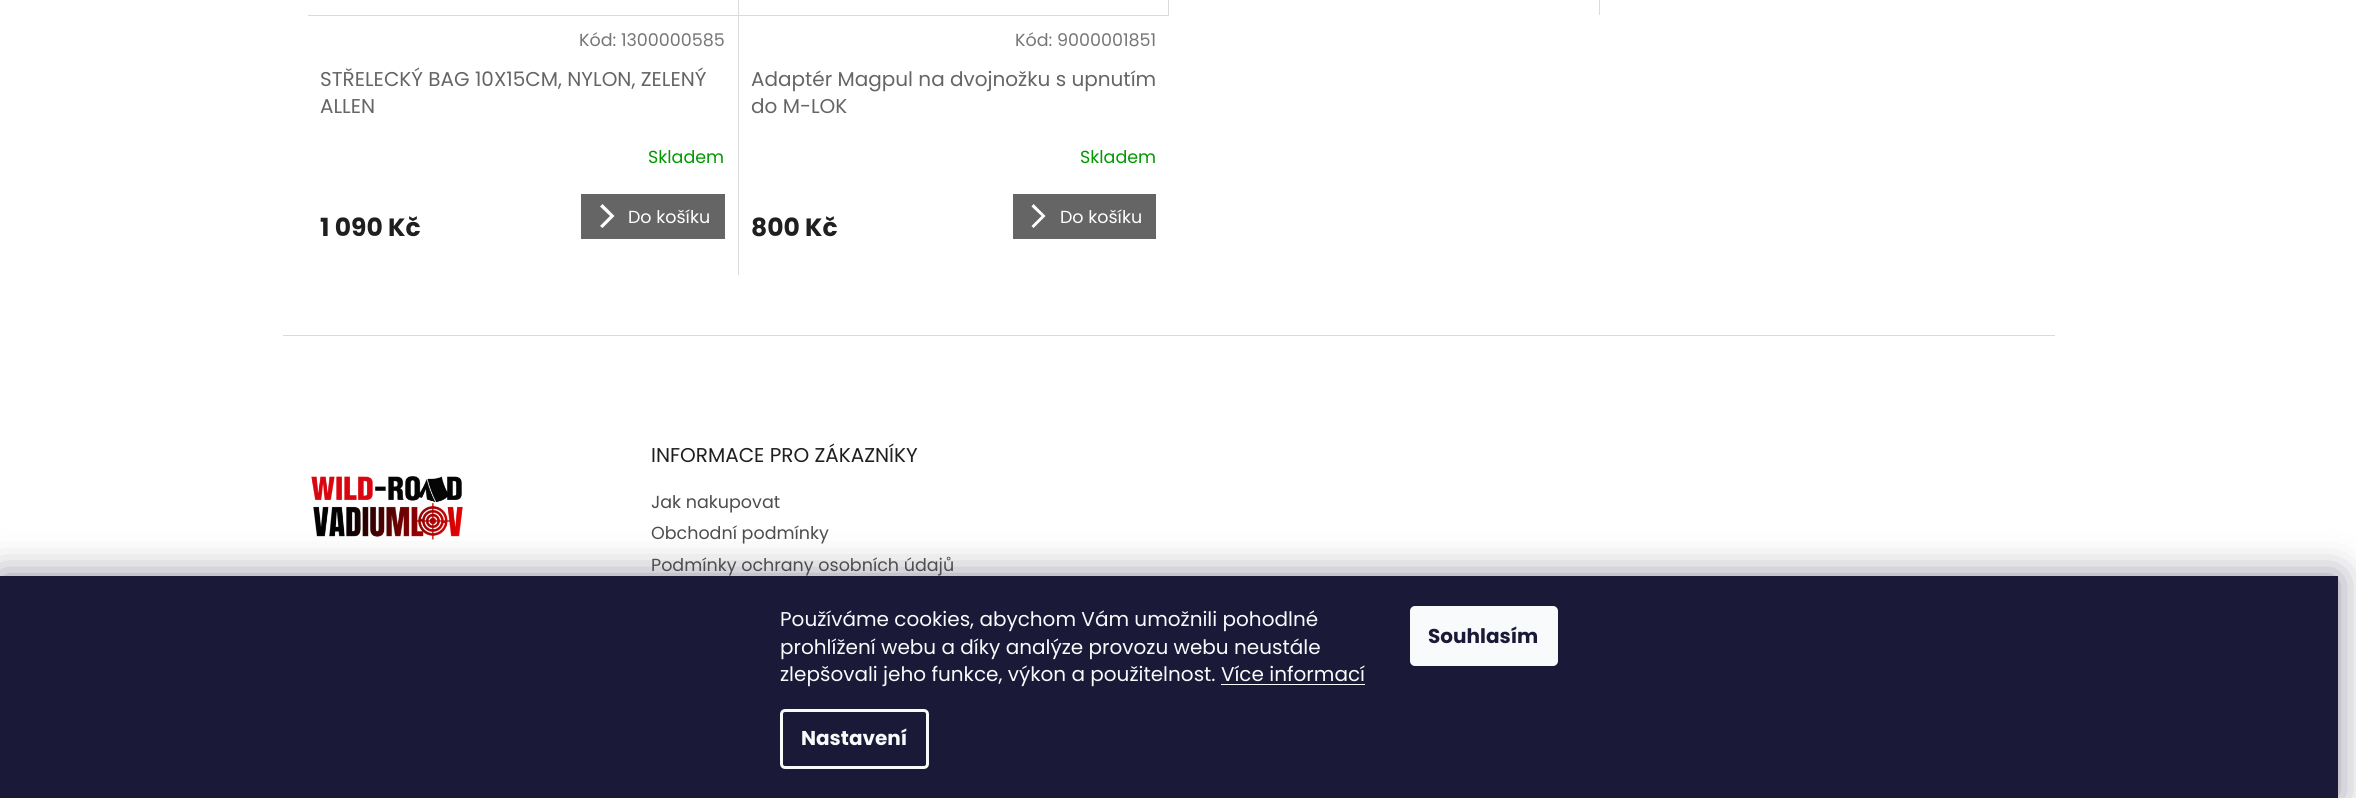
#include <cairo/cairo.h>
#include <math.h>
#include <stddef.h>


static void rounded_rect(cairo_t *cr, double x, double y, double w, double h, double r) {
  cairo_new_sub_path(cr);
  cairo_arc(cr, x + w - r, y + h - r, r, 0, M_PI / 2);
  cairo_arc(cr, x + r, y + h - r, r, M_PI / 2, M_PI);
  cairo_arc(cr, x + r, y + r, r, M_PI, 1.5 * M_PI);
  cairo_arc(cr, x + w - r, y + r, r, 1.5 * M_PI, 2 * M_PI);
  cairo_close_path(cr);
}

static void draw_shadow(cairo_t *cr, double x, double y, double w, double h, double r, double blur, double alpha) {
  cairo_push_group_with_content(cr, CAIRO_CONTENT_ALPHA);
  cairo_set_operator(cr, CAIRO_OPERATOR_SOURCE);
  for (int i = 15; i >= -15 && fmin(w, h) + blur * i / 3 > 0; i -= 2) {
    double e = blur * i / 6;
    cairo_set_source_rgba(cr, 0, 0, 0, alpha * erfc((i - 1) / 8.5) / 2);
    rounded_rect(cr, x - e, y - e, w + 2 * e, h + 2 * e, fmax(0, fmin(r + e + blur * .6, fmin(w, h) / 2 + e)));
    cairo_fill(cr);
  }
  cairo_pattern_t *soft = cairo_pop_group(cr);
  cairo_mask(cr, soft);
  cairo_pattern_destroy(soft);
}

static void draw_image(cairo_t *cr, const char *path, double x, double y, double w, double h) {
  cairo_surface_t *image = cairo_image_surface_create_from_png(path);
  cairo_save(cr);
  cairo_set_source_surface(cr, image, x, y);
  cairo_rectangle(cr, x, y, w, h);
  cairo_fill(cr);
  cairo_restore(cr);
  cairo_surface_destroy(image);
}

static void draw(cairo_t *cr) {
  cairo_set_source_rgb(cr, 1, 1, 1);
  cairo_paint(cr);
  cairo_set_source_rgb(cr, 218 / 255.0, 218 / 255.0, 218 / 255.0);
  cairo_rectangle(cr, 738, 0, 1, 15);
  cairo_fill(cr);
  cairo_rectangle(cr, 1168, 0, 1, 15);
  cairo_fill(cr);
  cairo_rectangle(cr, 1599, 0, 1, 15);
  cairo_fill(cr);
  cairo_rectangle(cr, 308, 15, 861, 1);
  cairo_fill(cr);
  cairo_rectangle(cr, 738, 15, 1, 260);
  cairo_fill(cr);
  cairo_set_source_rgb(cr, 101 / 255.0, 101 / 255.0, 101 / 255.0);
  cairo_rectangle(cr, 581, 194, 144, 45);
  cairo_fill(cr);
  cairo_set_source_rgb(cr, 1, 1, 1);
  cairo_new_path(cr);
  cairo_move_to(cr, 602.5, 228);
  cairo_line_to(cr, 600, 226);
  cairo_line_to(cr, 610, 216);
  cairo_line_to(cr, 600, 206.5);
  cairo_line_to(cr, 602.5, 204);
  cairo_line_to(cr, 614.5, 216);
  cairo_close_path(cr);
  cairo_fill(cr);
  cairo_set_source_rgb(cr, 101 / 255.0, 101 / 255.0, 101 / 255.0);
  cairo_rectangle(cr, 1013, 194, 143, 45);
  cairo_fill(cr);
  cairo_set_source_rgb(cr, 1, 1, 1);
  cairo_new_path(cr);
  cairo_move_to(cr, 1033.5, 228);
  cairo_line_to(cr, 1031.5, 226);
  cairo_line_to(cr, 1041.5, 216);
  cairo_line_to(cr, 1031.5, 206.5);
  cairo_line_to(cr, 1033.5, 204);
  cairo_line_to(cr, 1045.5, 216);
  cairo_close_path(cr);
  cairo_fill(cr);
  draw_image(cr, "images/1.png", 311, 476, 152, 64);
  cairo_set_source_rgb(cr, 218 / 255.0, 218 / 255.0, 218 / 255.0);
  cairo_rectangle(cr, 283, 335, 1772, 1);
  cairo_fill(cr);
  cairo_set_source_rgb(cr, 27 / 255.0, 25 / 255.0, 57 / 255.0);
  draw_shadow(cr, 0, 576, 2338, 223, 0, 19, 0.5);
  cairo_set_source_rgb(cr, 26 / 255.0, 25 / 255.0, 55 / 255.0);
  cairo_rectangle(cr, 0, 576, 2338, 222);
  cairo_fill(cr);
  cairo_set_source_rgb(cr, 248 / 255.0, 250 / 255.0, 251 / 255.0);
  cairo_rectangle(cr, 1221, 684, 144, 1);
  cairo_fill(cr);
  rounded_rect(cr, 781.5, 710.5, 146, 57, 3.5);
  cairo_set_line_width(cr, 3);
  cairo_stroke(cr);
  rounded_rect(cr, 1410, 606, 148, 60, 5);
  cairo_fill(cr);
  cairo_select_font_face(cr, "Poppins", CAIRO_FONT_SLANT_NORMAL, CAIRO_FONT_WEIGHT_NORMAL);
  cairo_set_font_size(cr, 17.5);
  cairo_set_source_rgb(cr, 118 / 255.0, 118 / 255.0, 118 / 255.0);
  cairo_move_to(cr, 579, 46);
  cairo_show_text(cr, "Kód: 1300000585");
  cairo_set_font_size(cr, 20);
  cairo_set_source_rgb(cr, 101 / 255.0, 101 / 255.0, 101 / 255.0);
  cairo_move_to(cr, 320, 86);
  cairo_show_text(cr, "STŘELECKÝ BAG 10X15CM, NYLON, ZELENÝ");
  cairo_move_to(cr, 320, 113);
  cairo_show_text(cr, "ALLEN");
  cairo_set_font_size(cr, 17.5);
  cairo_set_source_rgb(cr, 0, 153 / 255.0, 1 / 255.0);
  cairo_move_to(cr, 648, 163);
  cairo_show_text(cr, "Skladem");
  cairo_select_font_face(cr, "Poppins", CAIRO_FONT_SLANT_NORMAL, CAIRO_FONT_WEIGHT_BOLD);
  cairo_set_font_size(cr, 25);
  cairo_set_source_rgb(cr, 31 / 255.0, 31 / 255.0, 31 / 255.0);
  cairo_move_to(cr, 320, 236);
  cairo_show_text(cr, "1 090 Kč");
  cairo_select_font_face(cr, "Poppins", CAIRO_FONT_SLANT_NORMAL, CAIRO_FONT_WEIGHT_NORMAL);
  cairo_set_font_size(cr, 17.5);
  cairo_set_source_rgb(cr, 1, 1, 1);
  cairo_move_to(cr, 628, 223);
  cairo_show_text(cr, "Do košíku");
  cairo_set_source_rgb(cr, 118 / 255.0, 118 / 255.0, 118 / 255.0);
  cairo_move_to(cr, 1015, 46);
  cairo_show_text(cr, "Kód: 9000001851");
  cairo_set_font_size(cr, 20);
  cairo_set_source_rgb(cr, 101 / 255.0, 101 / 255.0, 101 / 255.0);
  cairo_move_to(cr, 751, 86);
  cairo_show_text(cr, "Adaptér Magpul na dvojnožku s upnutím");
  cairo_move_to(cr, 751, 113);
  cairo_show_text(cr, "do M-LOK");
  cairo_set_font_size(cr, 17.5);
  cairo_set_source_rgb(cr, 0, 153 / 255.0, 1 / 255.0);
  cairo_move_to(cr, 1080, 163);
  cairo_show_text(cr, "Skladem");
  cairo_select_font_face(cr, "Poppins", CAIRO_FONT_SLANT_NORMAL, CAIRO_FONT_WEIGHT_BOLD);
  cairo_set_font_size(cr, 25);
  cairo_set_source_rgb(cr, 31 / 255.0, 31 / 255.0, 31 / 255.0);
  cairo_move_to(cr, 751, 236);
  cairo_show_text(cr, "800 Kč");
  cairo_select_font_face(cr, "Poppins", CAIRO_FONT_SLANT_NORMAL, CAIRO_FONT_WEIGHT_NORMAL);
  cairo_set_font_size(cr, 17.5);
  cairo_set_source_rgb(cr, 1, 1, 1);
  cairo_move_to(cr, 1060, 223);
  cairo_show_text(cr, "Do košíku");
  cairo_set_font_size(cr, 20);
  cairo_set_source_rgb(cr, 31 / 255.0, 31 / 255.0, 31 / 255.0);
  cairo_move_to(cr, 651, 462);
  cairo_show_text(cr, "INFORMACE PRO ZÁKAZNÍKY");
  cairo_set_font_size(cr, 17.5);
  cairo_set_source_rgb(cr, 77 / 255.0, 77 / 255.0, 77 / 255.0);
  cairo_move_to(cr, 651, 508);
  cairo_show_text(cr, "Jak nakupovat");
  cairo_move_to(cr, 651, 539);
  cairo_show_text(cr, "Obchodní podmínky");
  cairo_move_to(cr, 651, 571);
  cairo_show_text(cr, "Podmínky ochrany osobních údajů");
  cairo_set_font_size(cr, 20);
  cairo_set_source_rgb(cr, 248 / 255.0, 250 / 255.0, 251 / 255.0);
  cairo_move_to(cr, 780, 626);
  cairo_show_text(cr, "Používáme cookies, abychom Vám umožnili pohodlné");
  cairo_move_to(cr, 780, 654);
  cairo_show_text(cr, "prohlížení webu a díky analýze provozu webu neustále");
  cairo_move_to(cr, 780, 681);
  cairo_show_text(cr, "zlepšovali jeho funkce, výkon a použitelnost. Více informací");
  cairo_select_font_face(cr, "Poppins", CAIRO_FONT_SLANT_NORMAL, CAIRO_FONT_WEIGHT_BOLD);
  cairo_move_to(cr, 801, 745);
  cairo_show_text(cr, "Nastavení");
  cairo_set_source_rgb(cr, 26 / 255.0, 25 / 255.0, 55 / 255.0);
  cairo_move_to(cr, 1428, 643);
  cairo_show_text(cr, "Souhlasím");
}

int main(void) {
  cairo_surface_t *surface = cairo_image_surface_create(CAIRO_FORMAT_RGB24, 2356, 798);
  cairo_t *cr = cairo_create(surface);
  cairo_font_options_t *options = cairo_font_options_create();
  cairo_font_options_set_hint_metrics(options, CAIRO_HINT_METRICS_OFF);
  cairo_font_options_set_hint_style(options, CAIRO_HINT_STYLE_NONE);
  cairo_set_font_options(cr, options);
  cairo_set_miter_limit(cr, 4);
  draw(cr);
  cairo_surface_write_to_png(surface, "out.png");
  cairo_font_options_destroy(options);
  cairo_destroy(cr);
  cairo_surface_destroy(surface);
  return 0;
}
